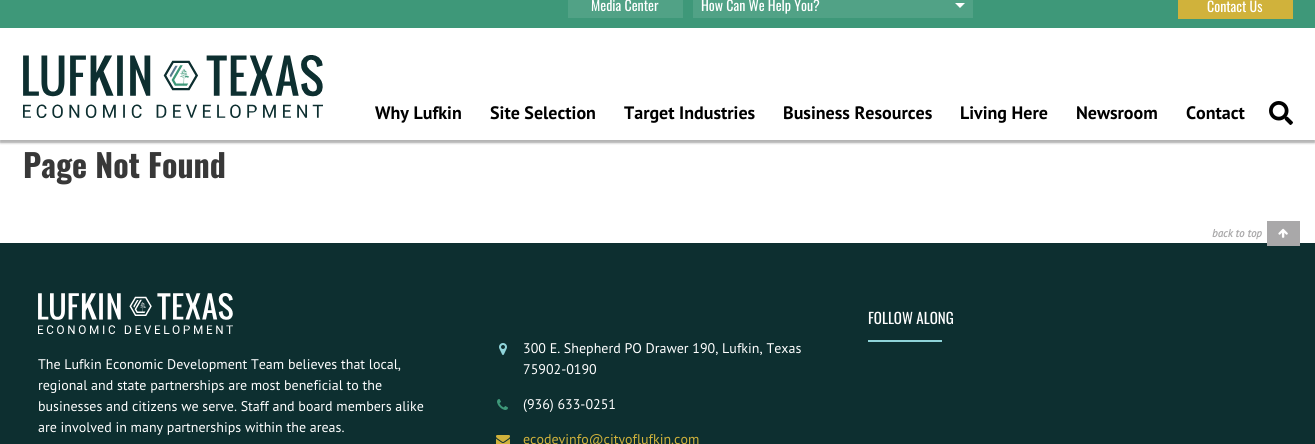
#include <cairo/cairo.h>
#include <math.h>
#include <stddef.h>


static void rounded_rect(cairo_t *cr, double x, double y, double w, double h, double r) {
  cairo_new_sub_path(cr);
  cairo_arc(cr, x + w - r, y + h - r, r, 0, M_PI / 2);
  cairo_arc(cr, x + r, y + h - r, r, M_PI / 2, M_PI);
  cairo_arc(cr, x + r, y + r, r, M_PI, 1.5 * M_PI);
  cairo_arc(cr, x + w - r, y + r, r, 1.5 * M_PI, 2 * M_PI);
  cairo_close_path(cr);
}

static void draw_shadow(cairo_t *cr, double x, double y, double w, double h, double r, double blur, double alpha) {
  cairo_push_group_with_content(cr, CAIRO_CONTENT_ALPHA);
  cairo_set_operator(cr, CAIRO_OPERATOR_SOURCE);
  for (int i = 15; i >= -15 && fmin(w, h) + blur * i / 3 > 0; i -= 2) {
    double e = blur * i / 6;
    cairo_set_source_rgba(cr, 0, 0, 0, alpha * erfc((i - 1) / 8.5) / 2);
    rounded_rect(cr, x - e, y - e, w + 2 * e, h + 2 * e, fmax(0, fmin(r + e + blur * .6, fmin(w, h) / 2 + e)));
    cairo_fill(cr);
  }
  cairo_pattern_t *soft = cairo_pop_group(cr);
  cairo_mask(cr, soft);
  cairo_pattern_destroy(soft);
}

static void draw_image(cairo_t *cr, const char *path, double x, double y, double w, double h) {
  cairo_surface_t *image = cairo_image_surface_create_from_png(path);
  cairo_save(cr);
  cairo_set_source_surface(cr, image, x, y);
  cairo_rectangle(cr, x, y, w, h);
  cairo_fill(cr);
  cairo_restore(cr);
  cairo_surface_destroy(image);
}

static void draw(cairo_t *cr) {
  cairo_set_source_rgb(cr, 1, 1, 1);
  cairo_paint(cr);
  cairo_save(cr);
  cairo_rectangle(cr, 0, 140, 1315, 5);
  cairo_clip(cr);
  cairo_set_source_rgb(cr, 0, 0, 0);
  draw_shadow(cr, 0, -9, 1315, 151, 0, 3, 0.16);
  cairo_restore(cr);
  cairo_set_source_rgb(cr, 62 / 255.0, 152 / 255.0, 121 / 255.0);
  cairo_rectangle(cr, 0, 0, 1315, 28);
  cairo_fill(cr);
  cairo_set_source_rgb(cr, 81 / 255.0, 162 / 255.0, 134 / 255.0);
  cairo_rectangle(cr, 568, 0, 115, 18);
  cairo_fill(cr);
  cairo_rectangle(cr, 693, 0, 280, 18);
  cairo_fill(cr);
  cairo_set_source_rgb(cr, 1, 1, 1);
  cairo_new_path(cr);
  cairo_move_to(cr, 955, 3);
  cairo_line_to(cr, 965, 3);
  cairo_line_to(cr, 960, 8);
  cairo_close_path(cr);
  cairo_fill(cr);
  cairo_set_source_rgb(cr, 208 / 255.0, 178 / 255.0, 59 / 255.0);
  cairo_rectangle(cr, 1178, 0, 115, 19);
  cairo_fill(cr);
  cairo_save(cr);
  cairo_rectangle(cr, 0, 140, 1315, 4);
  cairo_clip(cr);
  cairo_set_source_rgb(cr, 0, 0, 0);
  draw_shadow(cr, 0, 31, 1315, 112, 0, 0.5, 0.21);
  cairo_restore(cr);
  draw_image(cr, "images/1.png", 23, 55, 300, 63);
  draw_image(cr, "images/2.png", 1269, 101, 24, 24);
  cairo_set_source_rgb(cr, 13 / 255.0, 47 / 255.0, 48 / 255.0);
  cairo_rectangle(cr, 0, 243, 1315, 201);
  cairo_fill(cr);
  cairo_set_source_rgb(cr, 169 / 255.0, 168 / 255.0, 169 / 255.0);
  cairo_rectangle(cr, 1267, 221, 33, 25);
  cairo_fill(cr);
  draw_image(cr, "images/3.png", 1278, 228, 10, 10);
  cairo_set_source_rgb(cr, 143 / 255.0, 212 / 255.0, 217 / 255.0);
  cairo_rectangle(cr, 868, 340, 74, 2);
  cairo_fill(cr);
  draw_image(cr, "images/4.png", 38, 293, 195, 41);
  draw_image(cr, "images/5.png", 499, 343, 8, 12);
  draw_image(cr, "images/6.png", 497, 399, 11, 11);
  draw_image(cr, "images/7.png", 496, 435, 14, 9);
  cairo_select_font_face(cr, "Oswald", CAIRO_FONT_SLANT_NORMAL, CAIRO_FONT_WEIGHT_NORMAL);
  cairo_set_font_size(cr, 14);
  cairo_set_source_rgb(cr, 1, 1, 1);
  cairo_move_to(cr, 591, 11);
  cairo_show_text(cr, "Media Center");
  cairo_move_to(cr, 701, 11);
  cairo_show_text(cr, "How Can We Help You?");
  cairo_move_to(cr, 1207, 12);
  cairo_show_text(cr, "Contact Us");
  cairo_select_font_face(cr, "PT Sans", CAIRO_FONT_SLANT_NORMAL, CAIRO_FONT_WEIGHT_BOLD);
  cairo_set_font_size(cr, 18);
  cairo_set_source_rgb(cr, 0, 0, 0);
  cairo_move_to(cr, 375, 119);
  cairo_show_text(cr, "Why Lufkin");
  cairo_move_to(cr, 490, 119);
  cairo_show_text(cr, "Site Selection");
  cairo_move_to(cr, 624, 119);
  cairo_show_text(cr, "Target Industries");
  cairo_move_to(cr, 783, 119);
  cairo_show_text(cr, "Business Resources");
  cairo_move_to(cr, 960, 119);
  cairo_show_text(cr, "Living Here");
  cairo_move_to(cr, 1076, 119);
  cairo_show_text(cr, "Newsroom");
  cairo_move_to(cr, 1186, 119);
  cairo_show_text(cr, "Contact");
  cairo_select_font_face(cr, "Oswald", CAIRO_FONT_SLANT_NORMAL, CAIRO_FONT_WEIGHT_BOLD);
  cairo_set_font_size(cr, 32);
  cairo_set_source_rgb(cr, 56 / 255.0, 56 / 255.0, 56 / 255.0);
  cairo_move_to(cr, 23, 178);
  cairo_show_text(cr, "Page Not Found");
  cairo_select_font_face(cr, "PT Sans", CAIRO_FONT_SLANT_ITALIC, CAIRO_FONT_WEIGHT_BOLD);
  cairo_set_font_size(cr, 11);
  cairo_set_source_rgb(cr, 169 / 255.0, 168 / 255.0, 169 / 255.0);
  cairo_move_to(cr, 1212, 237);
  cairo_show_text(cr, "back to top");
  cairo_select_font_face(cr, "Oswald", CAIRO_FONT_SLANT_NORMAL, CAIRO_FONT_WEIGHT_NORMAL);
  cairo_set_font_size(cr, 15);
  cairo_set_source_rgb(cr, 1, 1, 1);
  cairo_move_to(cr, 868, 324);
  cairo_show_text(cr, "FOLLOW ALONG");
  cairo_select_font_face(cr, "PT Sans", CAIRO_FONT_SLANT_NORMAL, CAIRO_FONT_WEIGHT_NORMAL);
  cairo_set_font_size(cr, 14);
  cairo_move_to(cr, 38, 369);
  cairo_show_text(cr, "The Lufkin Economic Development Team believes that local,");
  cairo_move_to(cr, 38, 390);
  cairo_show_text(cr, "regional and state partnerships are most beneficial to the");
  cairo_move_to(cr, 38, 411);
  cairo_show_text(cr, "businesses and citizens we serve. Staff and board members alike");
  cairo_move_to(cr, 38, 432);
  cairo_show_text(cr, "are involved in many partnerships within the areas.");
  cairo_move_to(cr, 523, 353);
  cairo_show_text(cr, "300 E. Shepherd PO Drawer 190, Lufkin, Texas");
  cairo_move_to(cr, 523, 374);
  cairo_show_text(cr, "75902-0190");
  cairo_move_to(cr, 523, 409);
  cairo_show_text(cr, "(936) 633-0251");
  cairo_set_source_rgb(cr, 208 / 255.0, 178 / 255.0, 59 / 255.0);
  cairo_move_to(cr, 523, 444);
  cairo_show_text(cr, "ecodevinfo@cityoflufkin.com");
}

int main(void) {
  cairo_surface_t *surface = cairo_image_surface_create(CAIRO_FORMAT_RGB24, 1315, 444);
  cairo_t *cr = cairo_create(surface);
  cairo_font_options_t *options = cairo_font_options_create();
  cairo_font_options_set_hint_metrics(options, CAIRO_HINT_METRICS_OFF);
  cairo_font_options_set_hint_style(options, CAIRO_HINT_STYLE_NONE);
  cairo_set_font_options(cr, options);
  cairo_set_miter_limit(cr, 4);
  draw(cr);
  cairo_surface_write_to_png(surface, "out.png");
  cairo_font_options_destroy(options);
  cairo_destroy(cr);
  cairo_surface_destroy(surface);
  return 0;
}
